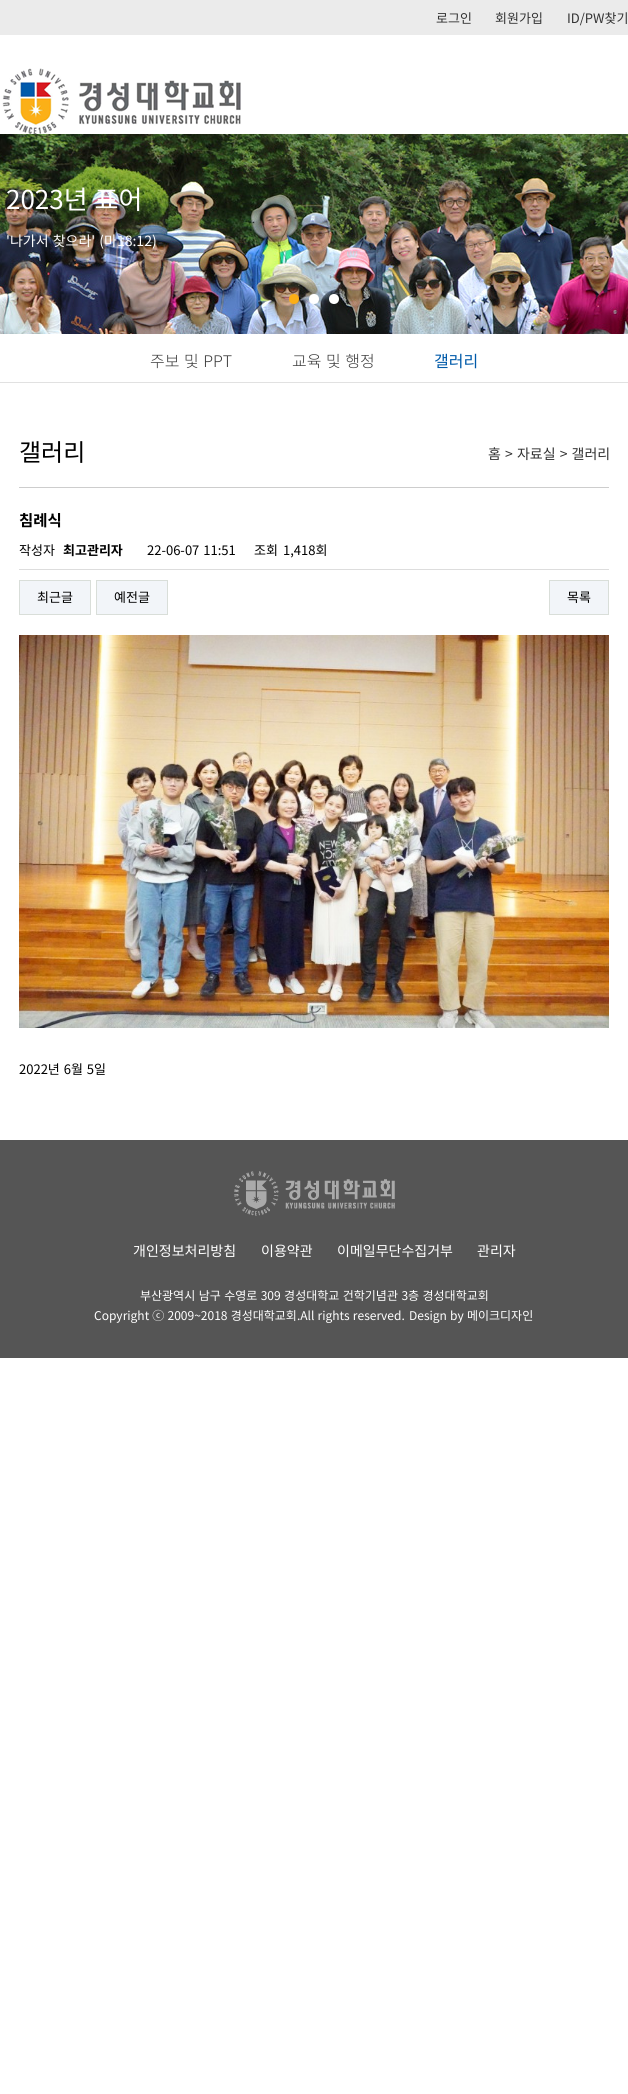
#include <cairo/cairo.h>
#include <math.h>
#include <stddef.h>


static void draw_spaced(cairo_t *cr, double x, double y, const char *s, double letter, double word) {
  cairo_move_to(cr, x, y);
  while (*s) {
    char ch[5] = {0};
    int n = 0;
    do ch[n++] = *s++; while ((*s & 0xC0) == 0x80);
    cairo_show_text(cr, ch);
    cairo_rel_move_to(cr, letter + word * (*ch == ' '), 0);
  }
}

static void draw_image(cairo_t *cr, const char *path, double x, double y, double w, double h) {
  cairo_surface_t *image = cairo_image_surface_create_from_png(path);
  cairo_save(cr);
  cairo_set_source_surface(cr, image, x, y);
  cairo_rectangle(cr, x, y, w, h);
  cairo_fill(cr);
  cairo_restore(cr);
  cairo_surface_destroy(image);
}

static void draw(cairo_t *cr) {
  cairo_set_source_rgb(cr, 1, 1, 1);
  cairo_paint(cr);
  cairo_set_source_rgb(cr, 235 / 255.0, 235 / 255.0, 235 / 255.0);
  cairo_rectangle(cr, 0, 0, 628, 35);
  cairo_fill(cr);
  draw_image(cr, "images/1.png", 2, 68, 239, 66);
  draw_image(cr, "images/2.png", 0, 134, 628, 200);
  cairo_set_source_rgb(cr, 251 / 255.0, 174 / 255.0, 22 / 255.0);
  cairo_arc(cr, 294, 299, 5, 0, 2 * M_PI);
  cairo_fill(cr);
  cairo_set_source_rgb(cr, 1, 1, 1);
  cairo_arc(cr, 314, 299, 5, 0, 2 * M_PI);
  cairo_fill(cr);
  cairo_arc(cr, 334, 299, 5, 0, 2 * M_PI);
  cairo_fill(cr);
  cairo_set_source_rgb(cr, 225 / 255.0, 225 / 255.0, 225 / 255.0);
  cairo_rectangle(cr, 0, 382, 628, 1);
  cairo_fill(cr);
  cairo_set_source_rgb(cr, 205 / 255.0, 205 / 255.0, 205 / 255.0);
  cairo_rectangle(cr, 19, 487, 590, 1);
  cairo_fill(cr);
  cairo_set_source_rgb(cr, 221 / 255.0, 221 / 255.0, 221 / 255.0);
  cairo_rectangle(cr, 19, 569, 590, 1);
  cairo_fill(cr);
  cairo_set_source_rgb(cr, 242 / 255.0, 245 / 255.0, 249 / 255.0);
  cairo_rectangle(cr, 19.5, 580.5, 71, 34);
  cairo_fill_preserve(cr);
  cairo_set_source_rgb(cr, 217 / 255.0, 222 / 255.0, 217 / 255.0);
  cairo_set_line_width(cr, 1);
  cairo_stroke(cr);
  cairo_set_source_rgb(cr, 242 / 255.0, 245 / 255.0, 249 / 255.0);
  cairo_rectangle(cr, 96.5, 580.5, 71, 34);
  cairo_fill_preserve(cr);
  cairo_set_source_rgb(cr, 217 / 255.0, 222 / 255.0, 217 / 255.0);
  cairo_stroke(cr);
  cairo_set_source_rgb(cr, 242 / 255.0, 245 / 255.0, 249 / 255.0);
  cairo_rectangle(cr, 549.5, 580.5, 59, 34);
  cairo_fill_preserve(cr);
  cairo_set_source_rgb(cr, 217 / 255.0, 222 / 255.0, 217 / 255.0);
  cairo_stroke(cr);
  draw_image(cr, "images/3.png", 19, 635, 590, 393);
  cairo_set_source_rgb(cr, 85 / 255.0, 85 / 255.0, 85 / 255.0);
  cairo_rectangle(cr, 0, 1140, 628, 218);
  cairo_fill(cr);
  draw_image(cr, "images/4.png", 234, 1171, 161, 45);
  cairo_select_font_face(cr, "Noto Sans KR", CAIRO_FONT_SLANT_NORMAL, CAIRO_FONT_WEIGHT_NORMAL);
  cairo_set_font_size(cr, 13);
  cairo_set_source_rgb(cr, 51 / 255.0, 51 / 255.0, 51 / 255.0);
  cairo_move_to(cr, 436, 23);
  cairo_show_text(cr, "로그인");
  cairo_move_to(cr, 495, 23);
  cairo_show_text(cr, "회원가입");
  cairo_move_to(cr, 567, 23);
  cairo_show_text(cr, "ID/PW찾기");
  cairo_set_font_size(cr, 26);
  cairo_set_source_rgb(cr, 1, 1, 1);
  draw_spaced(cr, 6, 209, "2023년 표어", 0, 1);
  cairo_set_font_size(cr, 14);
  draw_spaced(cr, 6, 246, "'나가서 찾으라' (마18:12)", 0, 1);
  cairo_select_font_face(cr, "Noto Sans KR Light", CAIRO_FONT_SLANT_NORMAL, CAIRO_FONT_WEIGHT_NORMAL);
  cairo_set_font_size(cr, 16);
  cairo_set_source_rgb(cr, 57 / 255.0, 57 / 255.0, 57 / 255.0);
  draw_spaced(cr, 150, 367, "주보 및 PPT", 0, 1);
  draw_spaced(cr, 292, 367, "교육 및 행정", 0, 1);
  cairo_select_font_face(cr, "Noto Sans KR", CAIRO_FONT_SLANT_NORMAL, CAIRO_FONT_WEIGHT_NORMAL);
  cairo_set_source_rgb(cr, 0, 90 / 255.0, 169 / 255.0);
  cairo_move_to(cr, 434, 367);
  cairo_show_text(cr, "갤러리");
  cairo_set_font_size(cr, 24);
  cairo_set_source_rgb(cr, 0, 0, 0);
  cairo_move_to(cr, 19, 461);
  cairo_show_text(cr, "갤러리");
  cairo_set_font_size(cr, 14);
  cairo_set_source_rgb(cr, 51 / 255.0, 51 / 255.0, 51 / 255.0);
  draw_spaced(cr, 488, 459, "홈 > 자료실 > 갤러리", 0, 1);
  cairo_select_font_face(cr, "Noto Sans KR", CAIRO_FONT_SLANT_NORMAL, CAIRO_FONT_WEIGHT_BOLD);
  cairo_set_font_size(cr, 15.5);
  cairo_set_source_rgb(cr, 0, 0, 0);
  cairo_move_to(cr, 19, 526);
  cairo_show_text(cr, "침례식");
  cairo_select_font_face(cr, "Noto Sans KR", CAIRO_FONT_SLANT_NORMAL, CAIRO_FONT_WEIGHT_NORMAL);
  cairo_set_font_size(cr, 13);
  cairo_move_to(cr, 19, 555);
  cairo_show_text(cr, "작성자");
  cairo_select_font_face(cr, "Noto Sans KR", CAIRO_FONT_SLANT_NORMAL, CAIRO_FONT_WEIGHT_BOLD);
  cairo_move_to(cr, 63, 555);
  cairo_show_text(cr, "최고관리자");
  cairo_select_font_face(cr, "Noto Sans KR", CAIRO_FONT_SLANT_NORMAL, CAIRO_FONT_WEIGHT_NORMAL);
  draw_spaced(cr, 147, 555, "22-06-07 11:51", 0, 1);
  cairo_move_to(cr, 254, 555);
  cairo_show_text(cr, "조회");
  cairo_move_to(cr, 283, 555);
  cairo_show_text(cr, "1,418회");
  cairo_move_to(cr, 37, 602);
  cairo_show_text(cr, "최근글");
  cairo_move_to(cr, 114, 602);
  cairo_show_text(cr, "예전글");
  cairo_move_to(cr, 567, 602);
  cairo_show_text(cr, "목록");
  draw_spaced(cr, 19, 1074, "2022년 6월 5일", 0, 1);
  cairo_set_font_size(cr, 14);
  cairo_set_source_rgb(cr, 1, 1, 1);
  cairo_move_to(cr, 133, 1256);
  cairo_show_text(cr, "개인정보처리방침");
  cairo_move_to(cr, 261, 1256);
  cairo_show_text(cr, "이용약관");
  cairo_move_to(cr, 337, 1256);
  cairo_show_text(cr, "이메일무단수집거부");
  cairo_move_to(cr, 477, 1256);
  cairo_show_text(cr, "관리자");
  cairo_set_font_size(cr, 12);
  draw_spaced(cr, 140, 1300, "부산광역시 남구 수영로 309 경성대학교 건학기념관 3층 경성대학교회", 0, 0.75);
  draw_spaced(cr, 94, 1320, "Copyright ⓒ 2009~2018 경성대학교회.All rights reserved.", 0, 0.5);
  draw_spaced(cr, 409, 1320, "Design by 메이크디자인", 0, 0.5);
}

int main(void) {
  cairo_surface_t *surface = cairo_image_surface_create(CAIRO_FORMAT_RGB24, 628, 2094);
  cairo_t *cr = cairo_create(surface);
  cairo_font_options_t *options = cairo_font_options_create();
  cairo_font_options_set_hint_metrics(options, CAIRO_HINT_METRICS_OFF);
  cairo_font_options_set_hint_style(options, CAIRO_HINT_STYLE_NONE);
  cairo_set_font_options(cr, options);
  cairo_set_miter_limit(cr, 4);
  draw(cr);
  cairo_surface_write_to_png(surface, "out.png");
  cairo_font_options_destroy(options);
  cairo_destroy(cr);
  cairo_surface_destroy(surface);
  return 0;
}
